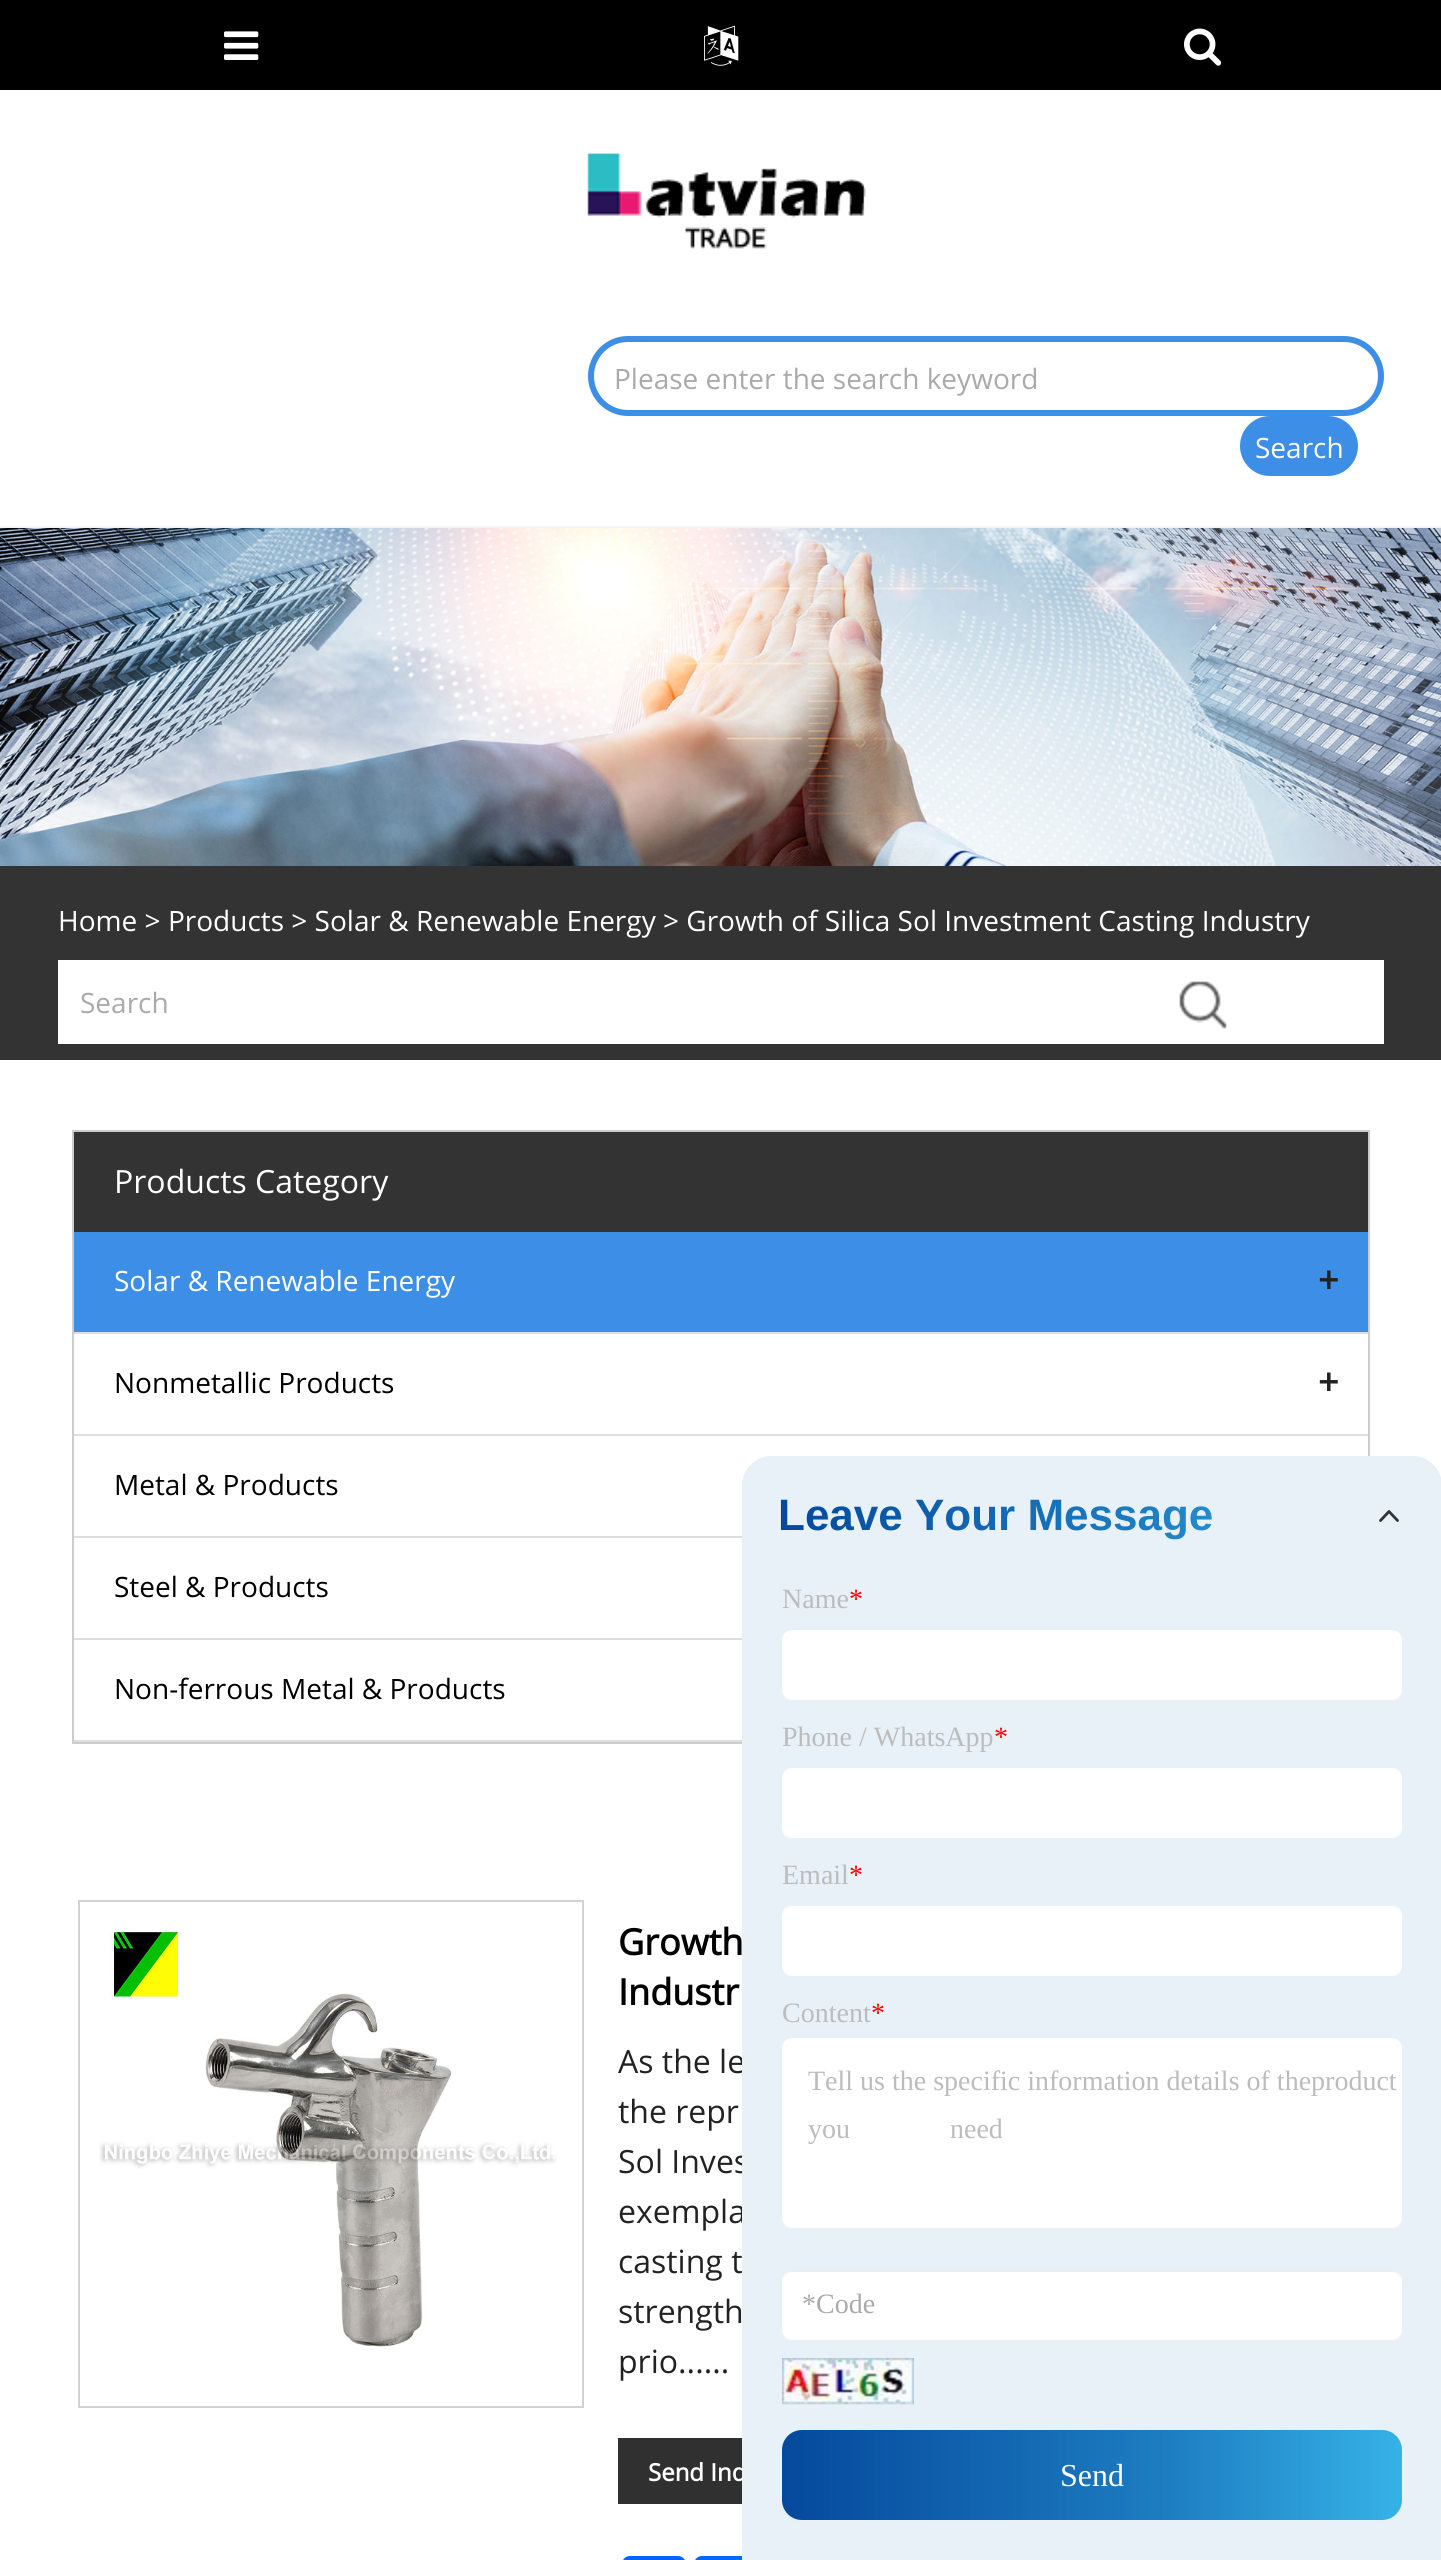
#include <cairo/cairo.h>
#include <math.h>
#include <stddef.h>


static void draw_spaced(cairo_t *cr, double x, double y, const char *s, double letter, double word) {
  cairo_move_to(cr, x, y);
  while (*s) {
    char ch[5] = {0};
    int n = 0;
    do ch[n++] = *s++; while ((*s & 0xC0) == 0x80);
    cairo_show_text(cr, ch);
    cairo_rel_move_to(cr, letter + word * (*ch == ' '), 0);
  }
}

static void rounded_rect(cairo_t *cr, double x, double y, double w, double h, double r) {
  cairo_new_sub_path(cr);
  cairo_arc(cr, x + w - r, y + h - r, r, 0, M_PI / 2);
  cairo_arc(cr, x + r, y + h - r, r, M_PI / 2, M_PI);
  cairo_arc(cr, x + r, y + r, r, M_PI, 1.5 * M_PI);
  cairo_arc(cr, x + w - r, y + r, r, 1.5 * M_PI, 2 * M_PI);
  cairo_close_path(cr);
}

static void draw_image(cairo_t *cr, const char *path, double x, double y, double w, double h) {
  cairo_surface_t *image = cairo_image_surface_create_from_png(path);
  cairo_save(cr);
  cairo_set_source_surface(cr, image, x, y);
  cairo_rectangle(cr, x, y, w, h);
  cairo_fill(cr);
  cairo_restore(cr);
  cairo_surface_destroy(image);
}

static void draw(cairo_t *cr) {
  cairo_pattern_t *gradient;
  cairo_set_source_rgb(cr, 1, 1, 1);
  cairo_paint(cr);
  cairo_set_source_rgb(cr, 0, 0, 0);
  cairo_rectangle(cr, 0, 0, 1441, 90);
  cairo_fill(cr);
  draw_image(cr, "images/1.png", 224, 31, 35, 29);
  draw_image(cr, "images/2.png", 704, 25, 35, 41);
  draw_image(cr, "images/3.png", 1184, 28, 38, 38);
  draw_image(cr, "images/4.png", 587, 153, 279, 96);
  rounded_rect(cr, 591, 339, 790, 74, 37);
  cairo_set_source_rgb(cr, 61 / 255.0, 142 / 255.0, 231 / 255.0);
  cairo_set_line_width(cr, 6);
  cairo_stroke(cr);
  rounded_rect(cr, 1240, 416, 118, 60, 30);
  cairo_fill(cr);
  cairo_set_source_rgb(cr, 244 / 255.0, 244 / 255.0, 244 / 255.0);
  cairo_rectangle(cr, 0, 526, 1441, 2);
  cairo_fill(cr);
  draw_image(cr, "images/5.png", 0, 528, 1441, 338);
  cairo_set_source_rgb(cr, 51 / 255.0, 51 / 255.0, 51 / 255.0);
  cairo_rectangle(cr, 0, 866, 1441, 194);
  cairo_fill(cr);
  cairo_set_source_rgb(cr, 1, 1, 1);
  cairo_rectangle(cr, 58, 960, 1326, 84);
  cairo_fill(cr);
  draw_image(cr, "images/6.png", 1179, 981, 48, 48);
  cairo_rectangle(cr, 73, 1131, 1296, 612);
  cairo_set_source_rgb(cr, 204 / 255.0, 204 / 255.0, 204 / 255.0);
  cairo_set_line_width(cr, 2);
  cairo_stroke(cr);
  cairo_set_source_rgb(cr, 51 / 255.0, 51 / 255.0, 51 / 255.0);
  cairo_rectangle(cr, 74, 1132, 1294, 100);
  cairo_fill(cr);
  cairo_set_source_rgb(cr, 222 / 255.0, 222 / 255.0, 222 / 255.0);
  cairo_rectangle(cr, 74, 1332, 1294, 2);
  cairo_fill(cr);
  cairo_set_source_rgb(cr, 61 / 255.0, 142 / 255.0, 231 / 255.0);
  cairo_rectangle(cr, 74, 1232, 1294, 100);
  cairo_fill(cr);
  cairo_set_source_rgb(cr, 222 / 255.0, 222 / 255.0, 222 / 255.0);
  cairo_rectangle(cr, 74, 1434, 1294, 2);
  cairo_fill(cr);
  cairo_rectangle(cr, 74, 1536, 668, 2);
  cairo_fill(cr);
  cairo_rectangle(cr, 74, 1638, 668, 2);
  cairo_fill(cr);
  cairo_rectangle(cr, 74, 1740, 668, 2);
  cairo_fill(cr);
  cairo_rectangle(cr, 79, 1901, 504, 506);
  cairo_set_source_rgb(cr, 210 / 255.0, 210 / 255.0, 210 / 255.0);
  cairo_stroke(cr);
  draw_image(cr, "images/7.png", 99, 1932, 458, 418);
  cairo_set_source_rgb(cr, 48 / 255.0, 48 / 255.0, 48 / 255.0);
  cairo_rectangle(cr, 618, 2438, 124, 66);
  cairo_fill(cr);
  cairo_set_source_rgb(cr, 1 / 255.0, 102 / 255.0, 1);
  rounded_rect(cr, 622, 2556, 64, 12, 8);
  cairo_fill(cr);
  cairo_set_source_rgb(cr, 8 / 255.0, 102 / 255.0, 1);
  rounded_rect(cr, 694, 2556, 64, 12, 8);
  cairo_fill(cr);
  cairo_select_font_face(cr, "Open Sans", CAIRO_FONT_SLANT_NORMAL, CAIRO_FONT_WEIGHT_NORMAL);
  cairo_set_font_size(cr, 28);
  cairo_set_source_rgb(cr, 170 / 255.0, 170 / 255.0, 170 / 255.0);
  cairo_move_to(cr, 614, 389);
  cairo_show_text(cr, "Please enter the search keyword");
  cairo_set_source_rgb(cr, 1, 1, 1);
  cairo_move_to(cr, 1255, 458);
  cairo_show_text(cr, "Search");
  cairo_move_to(cr, 58, 931);
  cairo_show_text(cr, "Home > Products > Solar & Renewable Energy > Growth of Silica Sol Investment Casting Industry");
  cairo_set_source_rgb(cr, 170 / 255.0, 170 / 255.0, 170 / 255.0);
  cairo_move_to(cr, 80, 1013);
  cairo_show_text(cr, "Search");
  cairo_set_font_size(cr, 32);
  cairo_set_source_rgb(cr, 1, 1, 1);
  cairo_move_to(cr, 114, 1193);
  cairo_show_text(cr, "Products Category");
  cairo_set_font_size(cr, 28);
  cairo_move_to(cr, 114, 1291);
  cairo_show_text(cr, "Solar & Renewable Energy");
  cairo_select_font_face(cr, "Open Sans", CAIRO_FONT_SLANT_NORMAL, CAIRO_FONT_WEIGHT_BOLD);
  cairo_set_font_size(cr, 36);
  cairo_set_source_rgb(cr, 34 / 255.0, 34 / 255.0, 34 / 255.0);
  cairo_move_to(cr, 1318, 1293);
  cairo_show_text(cr, "+");
  cairo_select_font_face(cr, "Open Sans", CAIRO_FONT_SLANT_NORMAL, CAIRO_FONT_WEIGHT_NORMAL);
  cairo_set_font_size(cr, 28);
  cairo_set_source_rgb(cr, 0, 0, 0);
  cairo_move_to(cr, 114, 1393);
  cairo_show_text(cr, "Nonmetallic Products");
  cairo_select_font_face(cr, "Open Sans", CAIRO_FONT_SLANT_NORMAL, CAIRO_FONT_WEIGHT_BOLD);
  cairo_set_font_size(cr, 36);
  cairo_set_source_rgb(cr, 34 / 255.0, 34 / 255.0, 34 / 255.0);
  cairo_move_to(cr, 1318, 1395);
  cairo_show_text(cr, "+");
  cairo_select_font_face(cr, "Open Sans", CAIRO_FONT_SLANT_NORMAL, CAIRO_FONT_WEIGHT_NORMAL);
  cairo_set_font_size(cr, 28);
  cairo_set_source_rgb(cr, 0, 0, 0);
  cairo_move_to(cr, 114, 1495);
  cairo_show_text(cr, "Metal & Products");
  cairo_move_to(cr, 114, 1597);
  cairo_show_text(cr, "Steel & Products");
  cairo_move_to(cr, 114, 1699);
  cairo_show_text(cr, "Non-ferrous Metal & Products");
  cairo_select_font_face(cr, "Open Sans", CAIRO_FONT_SLANT_NORMAL, CAIRO_FONT_WEIGHT_BOLD);
  cairo_set_font_size(cr, 36);
  cairo_move_to(cr, 618, 1955);
  cairo_show_text(cr, "Growth");
  cairo_move_to(cr, 618, 2005);
  cairo_show_text(cr, "Industr");
  cairo_select_font_face(cr, "Open Sans", CAIRO_FONT_SLANT_NORMAL, CAIRO_FONT_WEIGHT_NORMAL);
  cairo_set_font_size(cr, 32);
  cairo_set_source_rgb(cr, 34 / 255.0, 34 / 255.0, 34 / 255.0);
  cairo_move_to(cr, 618, 2073);
  cairo_show_text(cr, "As the le");
  cairo_move_to(cr, 618, 2123);
  cairo_show_text(cr, "the repr");
  cairo_move_to(cr, 618, 2173);
  cairo_show_text(cr, "Sol Inves");
  cairo_move_to(cr, 618, 2223);
  cairo_show_text(cr, "exempla");
  cairo_move_to(cr, 618, 2273);
  cairo_show_text(cr, "casting t");
  cairo_move_to(cr, 618, 2323);
  cairo_show_text(cr, "strength");
  cairo_move_to(cr, 618, 2373);
  cairo_show_text(cr, "prio......");
  cairo_select_font_face(cr, "Open Sans", CAIRO_FONT_SLANT_NORMAL, CAIRO_FONT_WEIGHT_BOLD);
  cairo_set_font_size(cr, 24);
  cairo_set_source_rgb(cr, 1, 1, 1);
  cairo_move_to(cr, 648, 2481);
  cairo_show_text(cr, "Send Inq");
  cairo_set_source_rgb(cr, 232 / 255.0, 241 / 255.0, 248 / 255.0);
  cairo_new_path(cr);
  cairo_move_to(cr, 772, 1456);
  cairo_line_to(cr, 1412, 1456);
  cairo_curve_to(cr, 1428.5, 1456, 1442, 1469.5, 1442, 1486);
  cairo_line_to(cr, 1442, 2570);
  cairo_line_to(cr, 742, 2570);
  cairo_line_to(cr, 742, 1486);
  cairo_curve_to(cr, 742, 1469.5, 755.5, 1456, 772, 1456);
  cairo_close_path(cr);
  cairo_fill(cr);
  cairo_new_path(cr);
  cairo_move_to(cr, 772, 1456);
  cairo_line_to(cr, 1412, 1456);
  cairo_curve_to(cr, 1428.5, 1456, 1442, 1469.5, 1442, 1486);
  cairo_line_to(cr, 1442, 1576);
  cairo_line_to(cr, 742, 1576);
  cairo_line_to(cr, 742, 1486);
  cairo_curve_to(cr, 742, 1469.5, 755.5, 1456, 772, 1456);
  cairo_close_path(cr);
  cairo_fill(cr);
  cairo_select_font_face(cr, "Liberation Sans", CAIRO_FONT_SLANT_NORMAL, CAIRO_FONT_WEIGHT_BOLD);
  cairo_set_font_size(cr, 44);
  gradient = cairo_pattern_create_linear(778, 1516, 1371, 1516);
  cairo_pattern_add_color_stop_rgba(gradient, 0, 5 / 255.0, 73 / 255.0, 156 / 255.0, 1);
  cairo_pattern_add_color_stop_rgba(gradient, 0.63, 30 / 255.0, 126 / 255.0, 194 / 255.0, 1);
  cairo_pattern_add_color_stop_rgba(gradient, 1, 54 / 255.0, 178 / 255.0, 231 / 255.0, 1);
  cairo_set_source(cr, gradient);
  cairo_pattern_destroy(gradient);
  cairo_move_to(cr, 778, 1530);
  cairo_show_text(cr, "Leave Your Message");
  cairo_new_path(cr);
  cairo_move_to(cr, 1397.5, 1520.5);
  cairo_line_to(cr, 1389, 1511.5);
  cairo_line_to(cr, 1380.5, 1520.5);
  cairo_set_source_rgb(cr, 51 / 255.0, 51 / 255.0, 51 / 255.0);
  cairo_set_line_width(cr, 2.8);
  cairo_set_line_cap(cr, CAIRO_LINE_CAP_ROUND);
  cairo_set_line_join(cr, CAIRO_LINE_JOIN_ROUND);
  cairo_stroke(cr);
  cairo_select_font_face(cr, "Liberation Serif", CAIRO_FONT_SLANT_NORMAL, CAIRO_FONT_WEIGHT_NORMAL);
  cairo_set_font_size(cr, 28);
  cairo_set_source_rgb(cr, 188 / 255.0, 188 / 255.0, 188 / 255.0);
  cairo_move_to(cr, 782, 1608);
  cairo_show_text(cr, "Name");
  cairo_set_source_rgb(cr, 1, 0, 0);
  cairo_move_to(cr, 849, 1608);
  cairo_show_text(cr, "*");
  cairo_set_source_rgb(cr, 1, 1, 1);
  rounded_rect(cr, 782, 1630, 620, 70, 10);
  cairo_fill(cr);
  cairo_set_source_rgb(cr, 188 / 255.0, 188 / 255.0, 188 / 255.0);
  cairo_move_to(cr, 782, 1746);
  cairo_show_text(cr, "Phone / WhatsApp");
  cairo_set_source_rgb(cr, 1, 0, 0);
  cairo_move_to(cr, 994, 1746);
  cairo_show_text(cr, "*");
  cairo_set_source_rgb(cr, 1, 1, 1);
  rounded_rect(cr, 782, 1768, 620, 70, 10);
  cairo_fill(cr);
  cairo_set_source_rgb(cr, 188 / 255.0, 188 / 255.0, 188 / 255.0);
  cairo_move_to(cr, 782, 1884);
  cairo_show_text(cr, "Email");
  cairo_set_source_rgb(cr, 1, 0, 0);
  cairo_move_to(cr, 849, 1884);
  cairo_show_text(cr, "*");
  cairo_set_source_rgb(cr, 1, 1, 1);
  rounded_rect(cr, 782, 1906, 620, 70, 10);
  cairo_fill(cr);
  cairo_set_source_rgb(cr, 188 / 255.0, 188 / 255.0, 188 / 255.0);
  cairo_move_to(cr, 782, 2022);
  cairo_show_text(cr, "Content");
  cairo_set_source_rgb(cr, 1, 0, 0);
  cairo_move_to(cr, 871, 2022);
  cairo_show_text(cr, "*");
  cairo_set_source_rgb(cr, 1, 1, 1);
  rounded_rect(cr, 782, 2038, 620, 190, 10);
  cairo_fill(cr);
  cairo_set_source_rgb(cr, 188 / 255.0, 188 / 255.0, 188 / 255.0);
  cairo_move_to(cr, 808, 2090);
  cairo_show_text(cr, "Tell us the specific information details of theproduct");
  draw_spaced(cr, 808, 2138, "you need", 0, 93);
  cairo_set_source_rgb(cr, 1, 1, 1);
  rounded_rect(cr, 782, 2270, 620, 70, 10);
  cairo_fill(cr);
  cairo_set_source_rgba(cr, 0, 0, 0, 0.07);
  cairo_new_path(cr);
  cairo_move_to(cr, 792, 2272);
  cairo_line_to(cr, 1392, 2272);
  cairo_curve_to(cr, 1398, 2272, 1402, 2276, 1402, 2282);
  cairo_curve_to(cr, 1402, 2276, 1399, 2270, 1392, 2270);
  cairo_line_to(cr, 792, 2270);
  cairo_curve_to(cr, 785, 2270, 782, 2276, 782, 2282);
  cairo_curve_to(cr, 782, 2276, 786, 2272, 792, 2272);
  cairo_close_path(cr);
  cairo_fill(cr);
  cairo_set_source_rgb(cr, 170 / 255.0, 170 / 255.0, 170 / 255.0);
  cairo_move_to(cr, 802, 2313);
  cairo_show_text(cr, "*Code");
  draw_image(cr, "images/8.png", 782, 2358, 132, 47);
  gradient = cairo_pattern_create_linear(782, 2475, 1402, 2475);
  cairo_pattern_add_color_stop_rgba(gradient, 0, 5 / 255.0, 73 / 255.0, 156 / 255.0, 1);
  cairo_pattern_add_color_stop_rgba(gradient, 0.63, 30 / 255.0, 126 / 255.0, 194 / 255.0, 1);
  cairo_pattern_add_color_stop_rgba(gradient, 1, 54 / 255.0, 178 / 255.0, 231 / 255.0, 1);
  cairo_set_source(cr, gradient);
  cairo_pattern_destroy(gradient);
  rounded_rect(cr, 782, 2430, 620, 90, 20);
  cairo_fill(cr);
  cairo_set_font_size(cr, 32);
  cairo_set_source_rgb(cr, 1, 1, 1);
  cairo_move_to(cr, 1060, 2486);
  cairo_show_text(cr, "Send");
}

int main(void) {
  cairo_surface_t *surface = cairo_image_surface_create(CAIRO_FORMAT_RGB24, 1441, 2560);
  cairo_t *cr = cairo_create(surface);
  cairo_font_options_t *options = cairo_font_options_create();
  cairo_font_options_set_hint_metrics(options, CAIRO_HINT_METRICS_OFF);
  cairo_font_options_set_hint_style(options, CAIRO_HINT_STYLE_NONE);
  cairo_set_font_options(cr, options);
  cairo_set_miter_limit(cr, 4);
  draw(cr);
  cairo_surface_write_to_png(surface, "out.png");
  cairo_font_options_destroy(options);
  cairo_destroy(cr);
  cairo_surface_destroy(surface);
  return 0;
}
